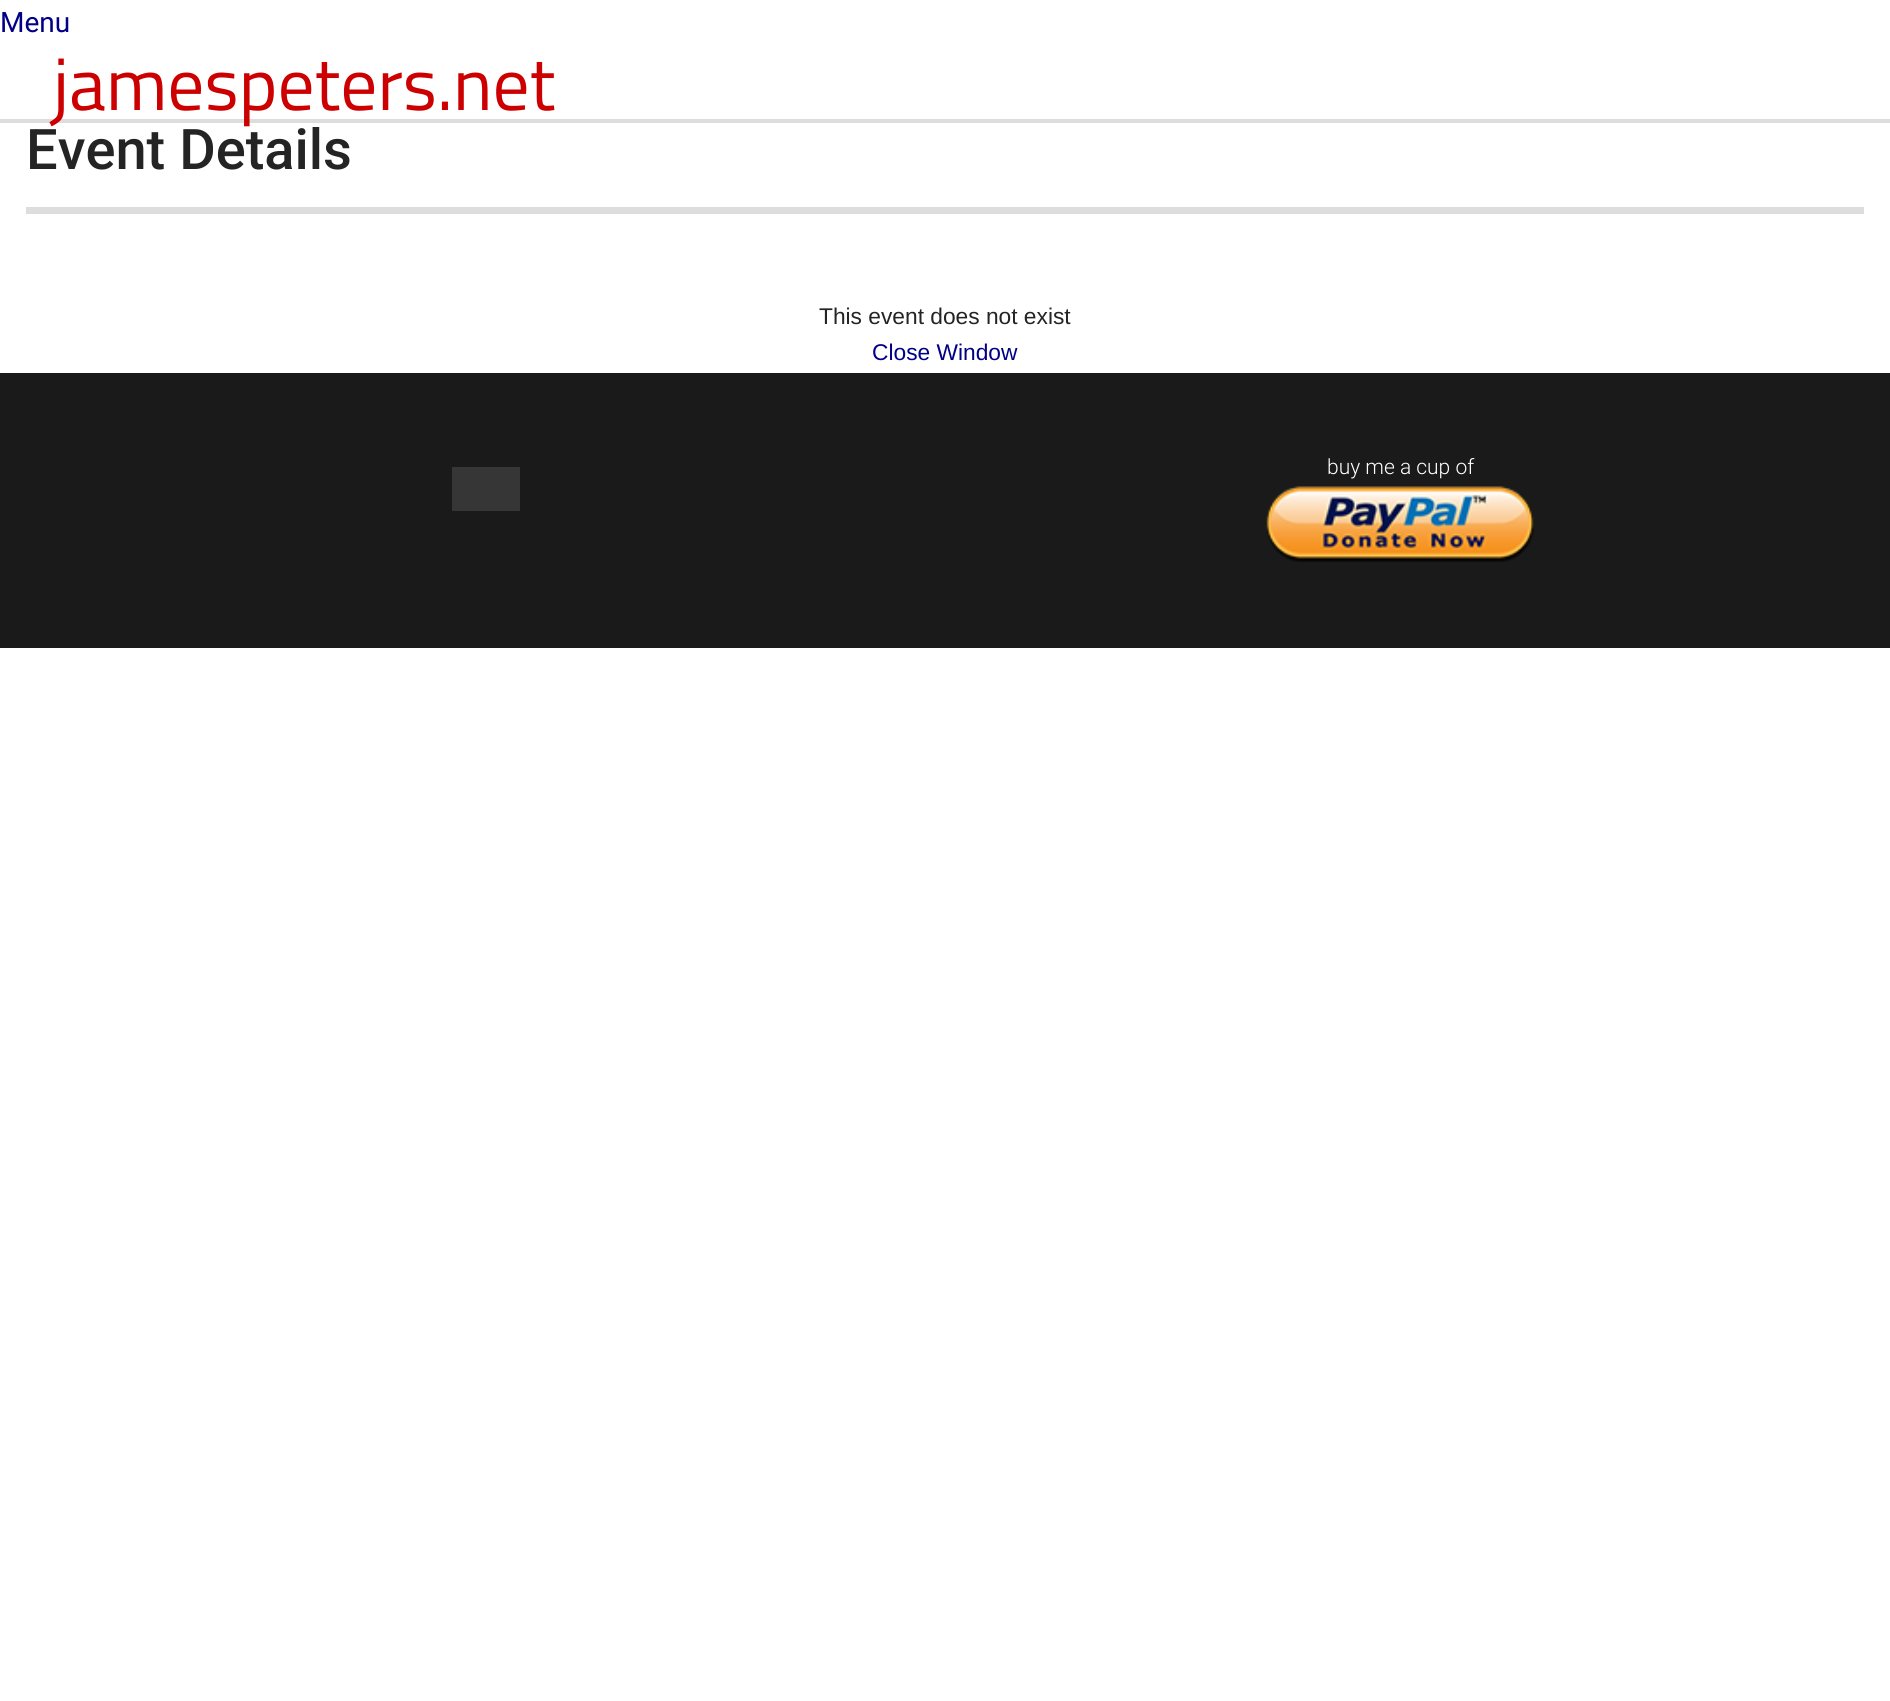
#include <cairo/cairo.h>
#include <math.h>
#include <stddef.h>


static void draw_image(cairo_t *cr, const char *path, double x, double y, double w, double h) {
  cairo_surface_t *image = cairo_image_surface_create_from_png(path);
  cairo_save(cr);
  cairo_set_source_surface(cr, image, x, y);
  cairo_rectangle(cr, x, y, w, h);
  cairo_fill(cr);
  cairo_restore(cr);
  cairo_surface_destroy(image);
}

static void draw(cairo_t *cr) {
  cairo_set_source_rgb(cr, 1, 1, 1);
  cairo_paint(cr);
  cairo_set_source_rgb(cr, 221 / 255.0, 221 / 255.0, 221 / 255.0);
  cairo_rectangle(cr, 0, 119, 1890, 4);
  cairo_fill(cr);
  cairo_rectangle(cr, 26, 207, 1838, 7);
  cairo_fill(cr);
  cairo_set_source_rgb(cr, 26 / 255.0, 26 / 255.0, 26 / 255.0);
  cairo_rectangle(cr, 0, 373, 1890, 275);
  cairo_fill(cr);
  cairo_set_source_rgb(cr, 54 / 255.0, 54 / 255.0, 54 / 255.0);
  cairo_rectangle(cr, 452, 467, 68, 44);
  cairo_fill(cr);
  draw_image(cr, "images/1.png", 1266, 486, 268, 76);
  cairo_select_font_face(cr, "Roboto", CAIRO_FONT_SLANT_NORMAL, CAIRO_FONT_WEIGHT_NORMAL);
  cairo_set_font_size(cr, 28);
  cairo_set_source_rgb(cr, 1 / 255.0, 0, 134 / 255.0);
  cairo_move_to(cr, 0, 32);
  cairo_show_text(cr, "Menu");
  cairo_select_font_face(cr, "Titillium Web", CAIRO_FONT_SLANT_NORMAL, CAIRO_FONT_WEIGHT_NORMAL);
  cairo_set_font_size(cr, 73.5);
  cairo_set_source_rgb(cr, 204 / 255.0, 0, 0);
  cairo_move_to(cr, 53, 110);
  cairo_show_text(cr, "jamespeters.net");
  cairo_select_font_face(cr, "Roboto Medium", CAIRO_FONT_SLANT_NORMAL, CAIRO_FONT_WEIGHT_NORMAL);
  cairo_set_font_size(cr, 56);
  cairo_set_source_rgb(cr, 36 / 255.0, 36 / 255.0, 36 / 255.0);
  cairo_move_to(cr, 26, 169);
  cairo_show_text(cr, "Event Details");
  cairo_select_font_face(cr, "Liberation Sans", CAIRO_FONT_SLANT_NORMAL, CAIRO_FONT_WEIGHT_NORMAL);
  cairo_set_font_size(cr, 22.75);
  cairo_move_to(cr, 819, 324);
  cairo_show_text(cr, "This event does not exist");
  cairo_set_source_rgb(cr, 1 / 255.0, 0, 134 / 255.0);
  cairo_move_to(cr, 872, 360);
  cairo_show_text(cr, "Close Window");
  cairo_select_font_face(cr, "Roboto Light", CAIRO_FONT_SLANT_NORMAL, CAIRO_FONT_WEIGHT_NORMAL);
  cairo_set_font_size(cr, 21);
  cairo_set_source_rgb(cr, 1, 1, 1);
  cairo_move_to(cr, 1327, 474);
  cairo_show_text(cr, "buy me a cup of");
}

int main(void) {
  cairo_surface_t *surface = cairo_image_surface_create(CAIRO_FORMAT_RGB24, 1890, 1701);
  cairo_t *cr = cairo_create(surface);
  cairo_font_options_t *options = cairo_font_options_create();
  cairo_font_options_set_hint_metrics(options, CAIRO_HINT_METRICS_OFF);
  cairo_font_options_set_hint_style(options, CAIRO_HINT_STYLE_NONE);
  cairo_set_font_options(cr, options);
  cairo_set_miter_limit(cr, 4);
  draw(cr);
  cairo_surface_write_to_png(surface, "out.png");
  cairo_font_options_destroy(options);
  cairo_destroy(cr);
  cairo_surface_destroy(surface);
  return 0;
}
